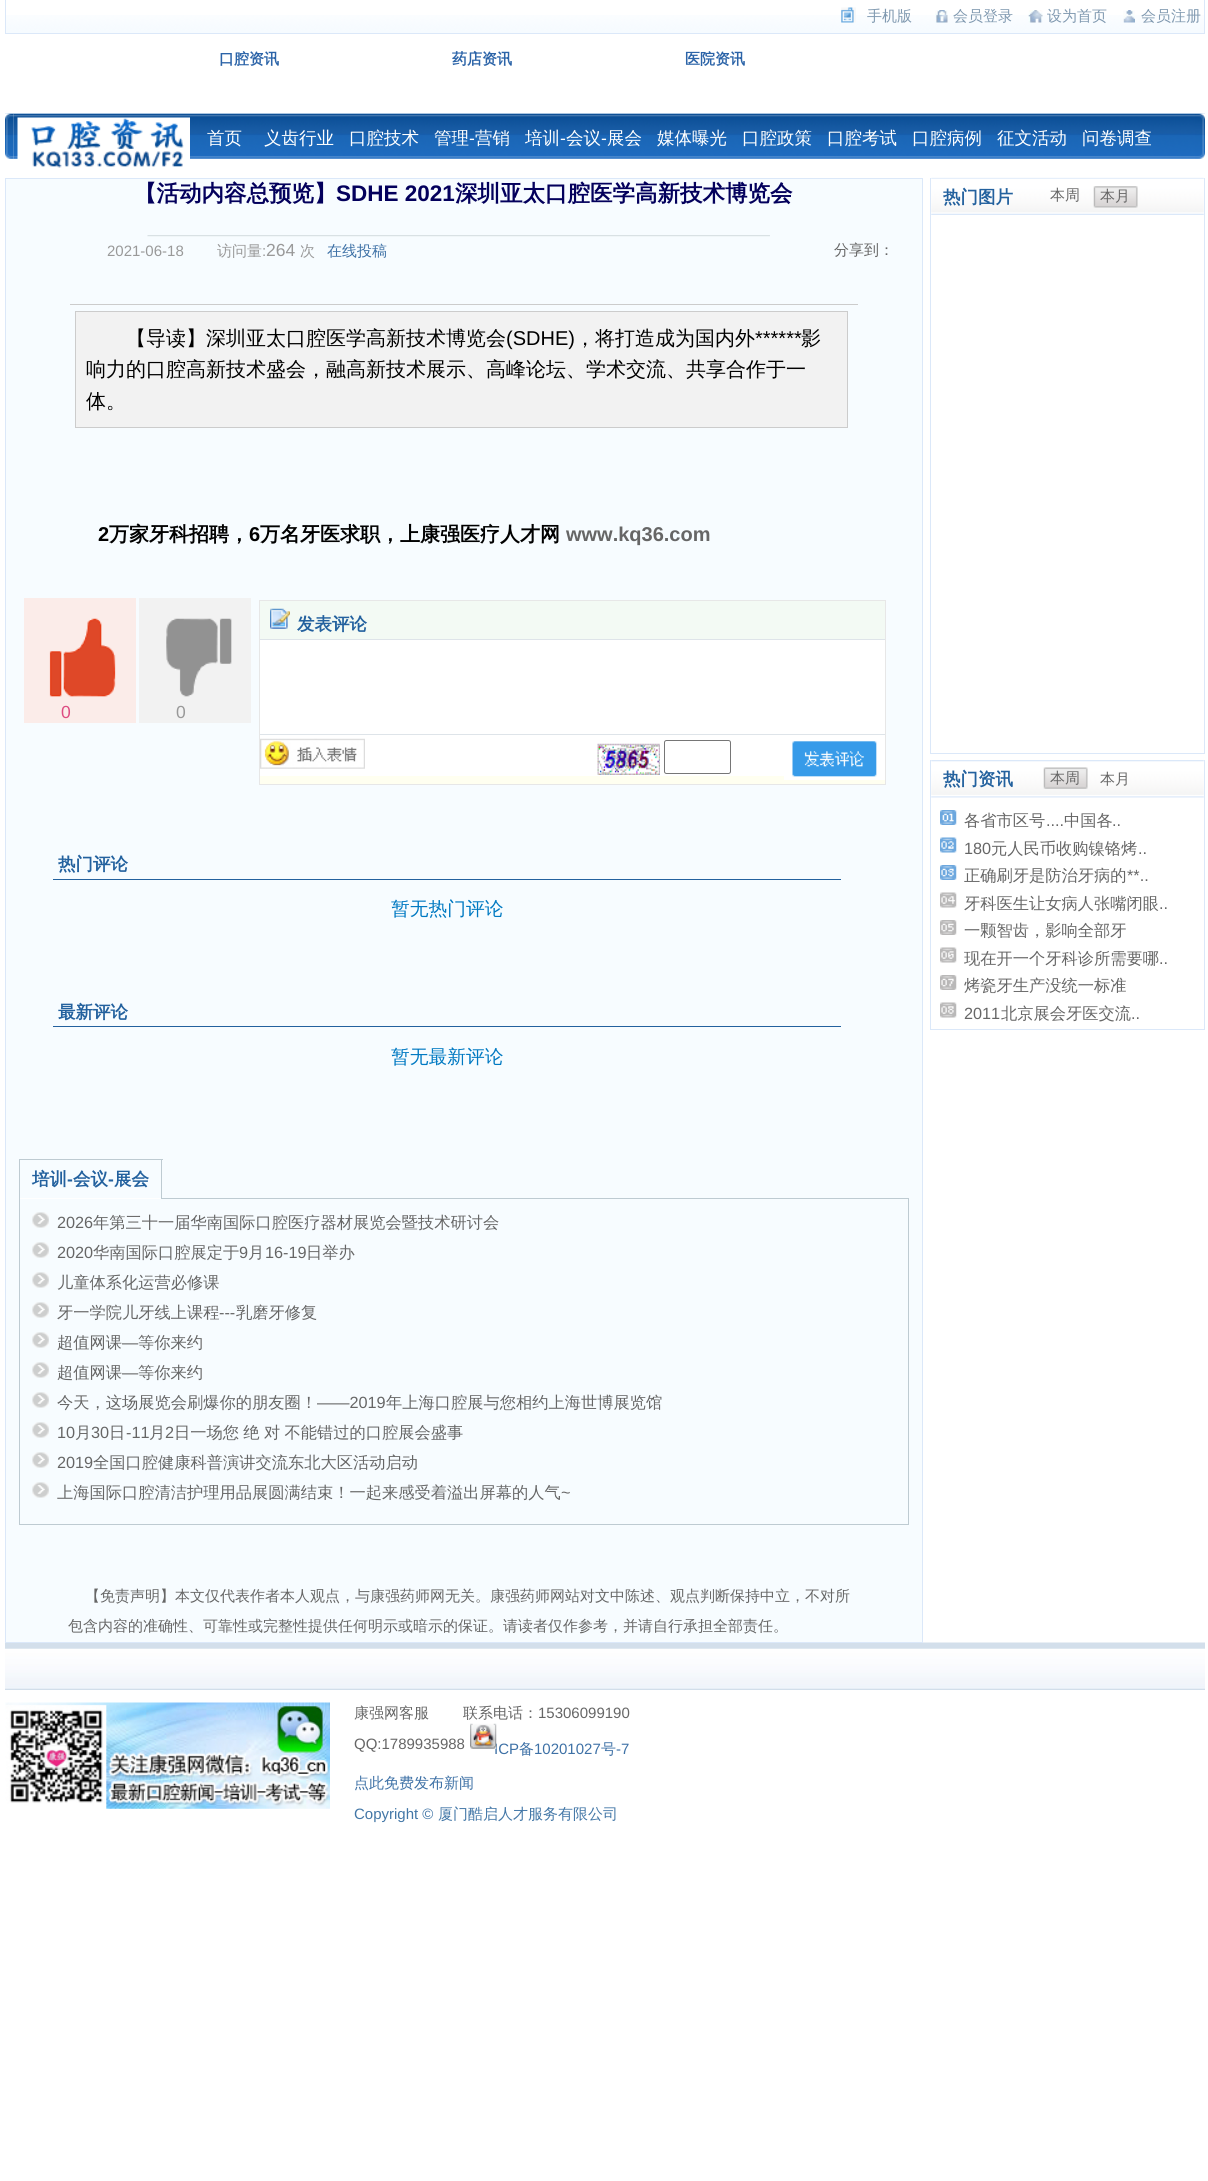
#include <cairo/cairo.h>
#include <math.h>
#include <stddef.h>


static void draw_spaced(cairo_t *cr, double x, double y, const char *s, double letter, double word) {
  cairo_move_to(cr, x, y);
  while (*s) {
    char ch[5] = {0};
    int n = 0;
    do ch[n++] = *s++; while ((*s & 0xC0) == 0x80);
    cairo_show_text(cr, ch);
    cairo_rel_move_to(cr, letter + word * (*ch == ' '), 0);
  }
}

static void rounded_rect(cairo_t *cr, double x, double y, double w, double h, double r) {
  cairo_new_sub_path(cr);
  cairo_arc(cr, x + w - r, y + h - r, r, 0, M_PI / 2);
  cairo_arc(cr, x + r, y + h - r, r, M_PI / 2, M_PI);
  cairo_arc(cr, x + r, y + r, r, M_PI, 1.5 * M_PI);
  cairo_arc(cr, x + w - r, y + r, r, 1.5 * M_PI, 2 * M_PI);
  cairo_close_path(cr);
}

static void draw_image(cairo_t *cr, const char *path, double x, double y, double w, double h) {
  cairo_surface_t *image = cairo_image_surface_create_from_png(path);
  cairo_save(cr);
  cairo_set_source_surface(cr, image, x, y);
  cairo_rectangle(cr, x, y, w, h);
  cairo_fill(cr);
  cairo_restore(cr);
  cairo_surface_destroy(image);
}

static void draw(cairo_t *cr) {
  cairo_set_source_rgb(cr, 1, 1, 1);
  cairo_paint(cr);
  draw_image(cr, "images/1.png", 6, 15, 1198, 18);
  cairo_set_source_rgb(cr, 219 / 255.0, 232 / 255.0, 249 / 255.0);
  cairo_rectangle(cr, 1204, 0, 1, 34);
  cairo_fill(cr);
  cairo_rectangle(cr, 5, 33, 1200, 1);
  cairo_fill(cr);
  cairo_rectangle(cr, 5, 0, 1, 34);
  cairo_fill(cr);
  draw_image(cr, "images/2.png", 841, 7, 15, 16);
  draw_image(cr, "images/3.png", 935, 10, 13, 13);
  draw_image(cr, "images/4.png", 1028, 10, 15, 13);
  draw_image(cr, "images/5.png", 1123, 10, 12, 13);
  cairo_set_source_rgb(cr, 223 / 255.0, 236 / 255.0, 250 / 255.0);
  cairo_rectangle(cr, 5, 113, 1200, 1);
  cairo_fill(cr);
  draw_image(cr, "images/6.png", 5, 113, 9, 46);
  draw_image(cr, "images/8.png", 13, 113, 1182, 46);
  draw_image(cr, "images/7.png", 17, 117, 173, 51);
  draw_image(cr, "images/9.png", 1195, 113, 10, 46);
  draw_image(cr, "images/30.png", 5, 1642, 1200, 48);
  cairo_set_source_rgb(cr, 247 / 255.0, 252 / 255.0, 1);
  cairo_rectangle(cr, 5.5, 178.5, 917, 1464);
  cairo_fill_preserve(cr);
  cairo_set_source_rgb(cr, 219 / 255.0, 232 / 255.0, 249 / 255.0);
  cairo_set_line_width(cr, 1);
  cairo_stroke(cr);
  draw_image(cr, "images/10.png", 147, 235, 623, 2);
  cairo_set_source_rgb(cr, 204 / 255.0, 204 / 255.0, 204 / 255.0);
  cairo_rectangle(cr, 70, 304, 788, 1);
  cairo_fill(cr);
  cairo_set_source_rgb(cr, 242 / 255.0, 242 / 255.0, 242 / 255.0);
  cairo_rectangle(cr, 75.5, 311.5, 772, 116);
  cairo_fill_preserve(cr);
  cairo_set_source_rgb(cr, 204 / 255.0, 204 / 255.0, 204 / 255.0);
  cairo_stroke(cr);
  cairo_set_source_rgb(cr, 231 / 255.0, 231 / 255.0, 231 / 255.0);
  cairo_rectangle(cr, 259, 600, 627, 185);
  cairo_fill(cr);
  cairo_set_source_rgb(cr, 1, 1, 240 / 255.0);
  cairo_rectangle(cr, 260, 776, 625, 8);
  cairo_fill(cr);
  cairo_set_source_rgb(cr, 1, 1, 1);
  cairo_rectangle(cr, 260, 640, 625, 136);
  cairo_fill(cr);
  cairo_set_source_rgb(cr, 243 / 255.0, 250 / 255.0, 244 / 255.0);
  cairo_rectangle(cr, 260, 601, 625, 38);
  cairo_fill(cr);
  draw_image(cr, "images/11.png", 270, 608, 20, 21);
  cairo_set_source_rgb(cr, 222 / 255.0, 228 / 255.0, 233 / 255.0);
  cairo_rectangle(cr, 260, 639, 625, 1);
  cairo_fill(cr);
  cairo_rectangle(cr, 260, 734, 625, 1);
  cairo_fill(cr);
  draw_image(cr, "images/12.png", 260, 738, 105, 31);
  draw_image(cr, "images/13.png", 597, 743, 63, 32);
  rounded_rect(cr, 664.5, 740.5, 66, 33, 2);
  cairo_set_source_rgb(cr, 118 / 255.0, 118 / 255.0, 118 / 255.0);
  cairo_stroke(cr);
  draw_image(cr, "images/14.png", 784, 741, 101, 39);
  cairo_set_source_rgb(cr, 251 / 255.0, 236 / 255.0, 233 / 255.0);
  cairo_rectangle(cr, 24, 598, 112, 125);
  cairo_fill(cr);
  draw_image(cr, "images/15.png", 49, 618, 67, 79);
  cairo_set_source_rgb(cr, 242 / 255.0, 242 / 255.0, 242 / 255.0);
  cairo_rectangle(cr, 139, 598, 112, 125);
  cairo_fill(cr);
  draw_image(cr, "images/16.png", 166, 618, 66, 79);
  cairo_set_source_rgb(cr, 35 / 255.0, 97 / 255.0, 158 / 255.0);
  cairo_rectangle(cr, 53, 879, 788, 1);
  cairo_fill(cr);
  cairo_rectangle(cr, 53, 1026, 788, 1);
  cairo_fill(cr);
  cairo_set_source_rgb(cr, 190 / 255.0, 203 / 255.0, 210 / 255.0);
  cairo_rectangle(cr, 19, 1524, 890, 1);
  cairo_fill(cr);
  cairo_rectangle(cr, 19, 1159, 144, 1);
  cairo_fill(cr);
  cairo_rectangle(cr, 161, 1159, 1, 39);
  cairo_fill(cr);
  cairo_rectangle(cr, 19, 1159, 1, 39);
  cairo_fill(cr);
  cairo_rectangle(cr, 19, 1198, 890, 1);
  cairo_fill(cr);
  cairo_set_source_rgb(cr, 1, 1, 1);
  cairo_rectangle(cr, 20, 1198, 141, 1);
  cairo_fill(cr);
  cairo_set_source_rgb(cr, 190 / 255.0, 203 / 255.0, 210 / 255.0);
  cairo_rectangle(cr, 908, 1199, 1, 325);
  cairo_fill(cr);
  cairo_rectangle(cr, 19, 1199, 1, 325);
  cairo_fill(cr);
  draw_image(cr, "images/17.png", 32, 1212, 17, 16);
  draw_image(cr, "images/17.png", 32, 1242, 17, 16);
  draw_image(cr, "images/17.png", 32, 1272, 17, 16);
  draw_image(cr, "images/17.png", 32, 1302, 17, 16);
  draw_image(cr, "images/17.png", 32, 1332, 17, 16);
  draw_image(cr, "images/17.png", 32, 1362, 17, 16);
  draw_image(cr, "images/17.png", 32, 1392, 17, 16);
  draw_image(cr, "images/17.png", 32, 1422, 17, 16);
  draw_image(cr, "images/17.png", 32, 1452, 17, 16);
  draw_image(cr, "images/17.png", 32, 1482, 17, 16);
  cairo_set_source_rgb(cr, 219 / 255.0, 232 / 255.0, 249 / 255.0);
  cairo_rectangle(cr, 1204, 178, 1, 576);
  cairo_fill(cr);
  cairo_rectangle(cr, 930, 753, 275, 1);
  cairo_fill(cr);
  cairo_rectangle(cr, 930, 178, 1, 576);
  cairo_fill(cr);
  draw_image(cr, "images/18.png", 931, 177, 273, 38);
  draw_image(cr, "images/19.png", 1093, 186, 45, 22);
  cairo_rectangle(cr, 1204, 760, 1, 270);
  cairo_fill(cr);
  cairo_rectangle(cr, 930, 1029, 275, 1);
  cairo_fill(cr);
  cairo_rectangle(cr, 930, 760, 1, 270);
  cairo_fill(cr);
  draw_image(cr, "images/20.png", 931, 760, 273, 38);
  draw_image(cr, "images/21.png", 1043, 767, 45, 22);
  draw_image(cr, "images/22.png", 940, 810, 17, 15);
  draw_image(cr, "images/23.png", 940, 837, 17, 16);
  draw_image(cr, "images/24.png", 940, 865, 17, 15);
  draw_image(cr, "images/25.png", 940, 892, 17, 16);
  draw_image(cr, "images/26.png", 940, 920, 17, 15);
  draw_image(cr, "images/27.png", 940, 947, 17, 16);
  draw_image(cr, "images/28.png", 940, 975, 17, 15);
  draw_image(cr, "images/29.png", 940, 1002, 17, 16);
  draw_image(cr, "images/31.png", 5, 1702, 325, 107);
  cairo_select_font_face(cr, "WenQuanYi Zen Hei Medium", CAIRO_FONT_SLANT_NORMAL, CAIRO_FONT_WEIGHT_NORMAL);
  cairo_set_font_size(cr, 15);
  cairo_set_source_rgb(cr, 128 / 255.0, 153 / 255.0, 176 / 255.0);
  cairo_move_to(cr, 867, 21);
  cairo_show_text(cr, "手机版");
  cairo_move_to(cr, 953, 21);
  cairo_show_text(cr, "会员登录");
  cairo_move_to(cr, 1047, 21);
  cairo_show_text(cr, "设为首页");
  cairo_move_to(cr, 1141, 21);
  cairo_show_text(cr, "会员注册");
  cairo_select_font_face(cr, "WenQuanYi Zen Hei", CAIRO_FONT_SLANT_NORMAL, CAIRO_FONT_WEIGHT_BOLD);
  cairo_set_source_rgb(cr, 44 / 255.0, 100 / 255.0, 168 / 255.0);
  cairo_move_to(cr, 219, 64);
  cairo_show_text(cr, "口腔资讯");
  cairo_move_to(cr, 452, 64);
  cairo_show_text(cr, "药店资讯");
  cairo_move_to(cr, 685, 64);
  cairo_show_text(cr, "医院资讯");
  cairo_select_font_face(cr, "WenQuanYi Zen Hei Medium", CAIRO_FONT_SLANT_NORMAL, CAIRO_FONT_WEIGHT_NORMAL);
  cairo_set_font_size(cr, 17.5);
  cairo_set_source_rgb(cr, 1, 1, 1);
  cairo_move_to(cr, 207, 144);
  cairo_show_text(cr, "首页");
  cairo_move_to(cr, 264, 144);
  cairo_show_text(cr, "义齿行业");
  cairo_move_to(cr, 349, 144);
  cairo_show_text(cr, "口腔技术");
  cairo_move_to(cr, 434, 144);
  cairo_show_text(cr, "管理");
  cairo_select_font_face(cr, "Liberation Sans", CAIRO_FONT_SLANT_NORMAL, CAIRO_FONT_WEIGHT_NORMAL);
  cairo_move_to(cr, 469, 144);
  cairo_show_text(cr, "-");
  cairo_select_font_face(cr, "WenQuanYi Zen Hei Medium", CAIRO_FONT_SLANT_NORMAL, CAIRO_FONT_WEIGHT_NORMAL);
  cairo_move_to(cr, 475, 144);
  cairo_show_text(cr, "营销");
  cairo_move_to(cr, 525, 144);
  cairo_show_text(cr, "培训");
  cairo_select_font_face(cr, "Liberation Sans", CAIRO_FONT_SLANT_NORMAL, CAIRO_FONT_WEIGHT_NORMAL);
  cairo_move_to(cr, 560, 144);
  cairo_show_text(cr, "-");
  cairo_select_font_face(cr, "WenQuanYi Zen Hei Medium", CAIRO_FONT_SLANT_NORMAL, CAIRO_FONT_WEIGHT_NORMAL);
  cairo_move_to(cr, 566, 144);
  cairo_show_text(cr, "会议");
  cairo_select_font_face(cr, "Liberation Sans", CAIRO_FONT_SLANT_NORMAL, CAIRO_FONT_WEIGHT_NORMAL);
  cairo_move_to(cr, 601, 144);
  cairo_show_text(cr, "-");
  cairo_select_font_face(cr, "WenQuanYi Zen Hei Medium", CAIRO_FONT_SLANT_NORMAL, CAIRO_FONT_WEIGHT_NORMAL);
  cairo_move_to(cr, 607, 144);
  cairo_show_text(cr, "展会");
  cairo_move_to(cr, 657, 144);
  cairo_show_text(cr, "媒体曝光");
  cairo_move_to(cr, 742, 144);
  cairo_show_text(cr, "口腔政策");
  cairo_move_to(cr, 827, 144);
  cairo_show_text(cr, "口腔考试");
  cairo_move_to(cr, 912, 144);
  cairo_show_text(cr, "口腔病例");
  cairo_move_to(cr, 997, 144);
  cairo_show_text(cr, "征文活动");
  cairo_move_to(cr, 1082, 144);
  cairo_show_text(cr, "问卷调查");
  cairo_select_font_face(cr, "WenQuanYi Zen Hei", CAIRO_FONT_SLANT_NORMAL, CAIRO_FONT_WEIGHT_BOLD);
  cairo_set_font_size(cr, 22.5);
  cairo_set_source_rgb(cr, 3 / 255.0, 0, 92 / 255.0);
  cairo_move_to(cr, 134, 201);
  cairo_show_text(cr, "【活动内容总预览】");
  cairo_select_font_face(cr, "Liberation Sans", CAIRO_FONT_SLANT_NORMAL, CAIRO_FONT_WEIGHT_BOLD);
  cairo_move_to(cr, 336, 201);
  cairo_show_text(cr, "SDHE 2021");
  cairo_select_font_face(cr, "WenQuanYi Zen Hei", CAIRO_FONT_SLANT_NORMAL, CAIRO_FONT_WEIGHT_BOLD);
  cairo_move_to(cr, 455, 201);
  cairo_show_text(cr, "深圳亚太口腔医学高新技术博览会");
  cairo_select_font_face(cr, "Liberation Sans", CAIRO_FONT_SLANT_NORMAL, CAIRO_FONT_WEIGHT_NORMAL);
  cairo_set_font_size(cr, 15);
  cairo_set_source_rgb(cr, 153 / 255.0, 153 / 255.0, 153 / 255.0);
  cairo_move_to(cr, 107, 256);
  cairo_show_text(cr, "2021-06-18");
  cairo_select_font_face(cr, "WenQuanYi Zen Hei Medium", CAIRO_FONT_SLANT_NORMAL, CAIRO_FONT_WEIGHT_NORMAL);
  cairo_move_to(cr, 217, 256);
  cairo_show_text(cr, "访问量");
  cairo_select_font_face(cr, "Liberation Sans", CAIRO_FONT_SLANT_NORMAL, CAIRO_FONT_WEIGHT_NORMAL);
  cairo_move_to(cr, 262, 256);
  cairo_show_text(cr, ":");
  cairo_set_font_size(cr, 17.5);
  cairo_move_to(cr, 266, 256);
  cairo_show_text(cr, "264");
  cairo_select_font_face(cr, "WenQuanYi Zen Hei Medium", CAIRO_FONT_SLANT_NORMAL, CAIRO_FONT_WEIGHT_NORMAL);
  cairo_set_font_size(cr, 15);
  cairo_move_to(cr, 300, 256);
  cairo_show_text(cr, "次");
  cairo_set_source_rgb(cr, 62 / 255.0, 113 / 255.0, 166 / 255.0);
  cairo_move_to(cr, 327, 256);
  cairo_show_text(cr, "在线投稿");
  cairo_set_source_rgb(cr, 102 / 255.0, 102 / 255.0, 102 / 255.0);
  cairo_move_to(cr, 834, 255);
  cairo_show_text(cr, "分享到：");
  cairo_set_font_size(cr, 20);
  cairo_set_source_rgb(cr, 0, 0, 0);
  cairo_move_to(cr, 126, 345);
  cairo_show_text(cr, "【导读】深圳亚太口腔医学高新技术博览会");
  cairo_select_font_face(cr, "Liberation Sans", CAIRO_FONT_SLANT_NORMAL, CAIRO_FONT_WEIGHT_NORMAL);
  cairo_move_to(cr, 506, 345);
  cairo_show_text(cr, "(SDHE)");
  cairo_select_font_face(cr, "WenQuanYi Zen Hei Medium", CAIRO_FONT_SLANT_NORMAL, CAIRO_FONT_WEIGHT_NORMAL);
  cairo_move_to(cr, 575, 345);
  cairo_show_text(cr, "，将打造成为国内外");
  cairo_select_font_face(cr, "Liberation Sans", CAIRO_FONT_SLANT_NORMAL, CAIRO_FONT_WEIGHT_NORMAL);
  cairo_move_to(cr, 755, 345);
  cairo_show_text(cr, "******");
  cairo_select_font_face(cr, "WenQuanYi Zen Hei Medium", CAIRO_FONT_SLANT_NORMAL, CAIRO_FONT_WEIGHT_NORMAL);
  cairo_move_to(cr, 801, 345);
  cairo_show_text(cr, "影");
  cairo_move_to(cr, 86, 376);
  cairo_show_text(cr, "响力的口腔高新技术盛会，融高新技术展示、高峰论坛、学术交流、共享合作于一");
  cairo_move_to(cr, 86, 408);
  cairo_show_text(cr, "体。");
  cairo_select_font_face(cr, "Liberation Sans", CAIRO_FONT_SLANT_NORMAL, CAIRO_FONT_WEIGHT_BOLD);
  cairo_move_to(cr, 98, 541);
  cairo_show_text(cr, "2");
  cairo_select_font_face(cr, "WenQuanYi Zen Hei", CAIRO_FONT_SLANT_NORMAL, CAIRO_FONT_WEIGHT_BOLD);
  cairo_move_to(cr, 109, 541);
  cairo_show_text(cr, "万家牙科招聘，");
  cairo_select_font_face(cr, "Liberation Sans", CAIRO_FONT_SLANT_NORMAL, CAIRO_FONT_WEIGHT_BOLD);
  cairo_move_to(cr, 249, 541);
  cairo_show_text(cr, "6");
  cairo_select_font_face(cr, "WenQuanYi Zen Hei", CAIRO_FONT_SLANT_NORMAL, CAIRO_FONT_WEIGHT_BOLD);
  cairo_move_to(cr, 260, 541);
  cairo_show_text(cr, "万名牙医求职，上康强医疗人才网");
  cairo_select_font_face(cr, "Liberation Sans", CAIRO_FONT_SLANT_NORMAL, CAIRO_FONT_WEIGHT_BOLD);
  cairo_set_source_rgb(cr, 102 / 255.0, 102 / 255.0, 102 / 255.0);
  cairo_move_to(cr, 566, 541);
  cairo_show_text(cr, "www.kq36.com");
  cairo_select_font_face(cr, "WenQuanYi Zen Hei", CAIRO_FONT_SLANT_NORMAL, CAIRO_FONT_WEIGHT_BOLD);
  cairo_set_font_size(cr, 17.5);
  cairo_set_source_rgb(cr, 35 / 255.0, 97 / 255.0, 158 / 255.0);
  cairo_move_to(cr, 297, 630);
  cairo_show_text(cr, "发表评论");
  cairo_select_font_face(cr, "Liberation Sans", CAIRO_FONT_SLANT_NORMAL, CAIRO_FONT_WEIGHT_NORMAL);
  cairo_set_source_rgb(cr, 221 / 255.0, 76 / 255.0, 130 / 255.0);
  cairo_move_to(cr, 61, 718);
  cairo_show_text(cr, "0");
  cairo_set_source_rgb(cr, 153 / 255.0, 153 / 255.0, 153 / 255.0);
  cairo_move_to(cr, 176, 718);
  cairo_show_text(cr, "0");
  cairo_select_font_face(cr, "WenQuanYi Zen Hei", CAIRO_FONT_SLANT_NORMAL, CAIRO_FONT_WEIGHT_BOLD);
  cairo_set_source_rgb(cr, 35 / 255.0, 97 / 255.0, 158 / 255.0);
  cairo_move_to(cr, 58, 870);
  cairo_show_text(cr, "热门评论");
  cairo_select_font_face(cr, "WenQuanYi Zen Hei Medium", CAIRO_FONT_SLANT_NORMAL, CAIRO_FONT_WEIGHT_NORMAL);
  cairo_set_font_size(cr, 18.75);
  cairo_set_source_rgb(cr, 0, 121 / 255.0, 194 / 255.0);
  cairo_move_to(cr, 391, 915);
  cairo_show_text(cr, "暂无热门评论");
  cairo_select_font_face(cr, "WenQuanYi Zen Hei", CAIRO_FONT_SLANT_NORMAL, CAIRO_FONT_WEIGHT_BOLD);
  cairo_set_font_size(cr, 17.5);
  cairo_set_source_rgb(cr, 35 / 255.0, 97 / 255.0, 158 / 255.0);
  cairo_move_to(cr, 58, 1018);
  cairo_show_text(cr, "最新评论");
  cairo_select_font_face(cr, "WenQuanYi Zen Hei Medium", CAIRO_FONT_SLANT_NORMAL, CAIRO_FONT_WEIGHT_NORMAL);
  cairo_set_font_size(cr, 18.75);
  cairo_set_source_rgb(cr, 0, 121 / 255.0, 194 / 255.0);
  cairo_move_to(cr, 391, 1063);
  cairo_show_text(cr, "暂无最新评论");
  cairo_select_font_face(cr, "WenQuanYi Zen Hei", CAIRO_FONT_SLANT_NORMAL, CAIRO_FONT_WEIGHT_BOLD);
  cairo_set_font_size(cr, 17.5);
  cairo_set_source_rgb(cr, 35 / 255.0, 97 / 255.0, 158 / 255.0);
  cairo_move_to(cr, 32, 1185);
  cairo_show_text(cr, "培训");
  cairo_select_font_face(cr, "Liberation Sans", CAIRO_FONT_SLANT_NORMAL, CAIRO_FONT_WEIGHT_BOLD);
  cairo_move_to(cr, 67, 1185);
  cairo_show_text(cr, "-");
  cairo_select_font_face(cr, "WenQuanYi Zen Hei", CAIRO_FONT_SLANT_NORMAL, CAIRO_FONT_WEIGHT_BOLD);
  cairo_move_to(cr, 73, 1185);
  cairo_show_text(cr, "会议");
  cairo_select_font_face(cr, "Liberation Sans", CAIRO_FONT_SLANT_NORMAL, CAIRO_FONT_WEIGHT_BOLD);
  cairo_move_to(cr, 108, 1185);
  cairo_show_text(cr, "-");
  cairo_select_font_face(cr, "WenQuanYi Zen Hei", CAIRO_FONT_SLANT_NORMAL, CAIRO_FONT_WEIGHT_BOLD);
  cairo_move_to(cr, 114, 1185);
  cairo_show_text(cr, "展会");
  cairo_select_font_face(cr, "Liberation Sans", CAIRO_FONT_SLANT_NORMAL, CAIRO_FONT_WEIGHT_NORMAL);
  cairo_set_font_size(cr, 16.25);
  cairo_set_source_rgb(cr, 102 / 255.0, 102 / 255.0, 102 / 255.0);
  cairo_move_to(cr, 57, 1228);
  cairo_show_text(cr, "2026");
  cairo_select_font_face(cr, "WenQuanYi Zen Hei Medium", CAIRO_FONT_SLANT_NORMAL, CAIRO_FONT_WEIGHT_NORMAL);
  cairo_move_to(cr, 93, 1228);
  cairo_show_text(cr, "年第三十一届华南国际口腔医疗器材展览会暨技术研讨会");
  cairo_select_font_face(cr, "Liberation Sans", CAIRO_FONT_SLANT_NORMAL, CAIRO_FONT_WEIGHT_NORMAL);
  cairo_move_to(cr, 57, 1258);
  cairo_show_text(cr, "2020");
  cairo_select_font_face(cr, "WenQuanYi Zen Hei Medium", CAIRO_FONT_SLANT_NORMAL, CAIRO_FONT_WEIGHT_NORMAL);
  cairo_move_to(cr, 93, 1258);
  cairo_show_text(cr, "华南国际口腔展定于");
  cairo_select_font_face(cr, "Liberation Sans", CAIRO_FONT_SLANT_NORMAL, CAIRO_FONT_WEIGHT_NORMAL);
  cairo_move_to(cr, 239, 1258);
  cairo_show_text(cr, "9");
  cairo_select_font_face(cr, "WenQuanYi Zen Hei Medium", CAIRO_FONT_SLANT_NORMAL, CAIRO_FONT_WEIGHT_NORMAL);
  cairo_move_to(cr, 248, 1258);
  cairo_show_text(cr, "月");
  cairo_select_font_face(cr, "Liberation Sans", CAIRO_FONT_SLANT_NORMAL, CAIRO_FONT_WEIGHT_NORMAL);
  cairo_move_to(cr, 265, 1258);
  cairo_show_text(cr, "16-19");
  cairo_select_font_face(cr, "WenQuanYi Zen Hei Medium", CAIRO_FONT_SLANT_NORMAL, CAIRO_FONT_WEIGHT_NORMAL);
  cairo_move_to(cr, 306, 1258);
  cairo_show_text(cr, "日举办");
  cairo_move_to(cr, 57, 1288);
  cairo_show_text(cr, "儿童体系化运营必修课");
  cairo_move_to(cr, 57, 1318);
  cairo_show_text(cr, "牙一学院儿牙线上课程");
  cairo_select_font_face(cr, "Liberation Sans", CAIRO_FONT_SLANT_NORMAL, CAIRO_FONT_WEIGHT_NORMAL);
  cairo_move_to(cr, 219, 1318);
  cairo_show_text(cr, "---");
  cairo_select_font_face(cr, "WenQuanYi Zen Hei Medium", CAIRO_FONT_SLANT_NORMAL, CAIRO_FONT_WEIGHT_NORMAL);
  cairo_move_to(cr, 236, 1318);
  cairo_show_text(cr, "乳磨牙修复");
  cairo_move_to(cr, 57, 1348);
  cairo_show_text(cr, "超值网课");
  cairo_select_font_face(cr, "Liberation Sans", CAIRO_FONT_SLANT_NORMAL, CAIRO_FONT_WEIGHT_NORMAL);
  cairo_move_to(cr, 122, 1348);
  cairo_show_text(cr, "—");
  cairo_select_font_face(cr, "WenQuanYi Zen Hei Medium", CAIRO_FONT_SLANT_NORMAL, CAIRO_FONT_WEIGHT_NORMAL);
  cairo_move_to(cr, 138, 1348);
  cairo_show_text(cr, "等你来约");
  cairo_move_to(cr, 57, 1378);
  cairo_show_text(cr, "超值网课");
  cairo_select_font_face(cr, "Liberation Sans", CAIRO_FONT_SLANT_NORMAL, CAIRO_FONT_WEIGHT_NORMAL);
  cairo_move_to(cr, 122, 1378);
  cairo_show_text(cr, "—");
  cairo_select_font_face(cr, "WenQuanYi Zen Hei Medium", CAIRO_FONT_SLANT_NORMAL, CAIRO_FONT_WEIGHT_NORMAL);
  cairo_move_to(cr, 138, 1378);
  cairo_show_text(cr, "等你来约");
  cairo_move_to(cr, 57, 1408);
  cairo_show_text(cr, "今天，这场展览会刷爆你的朋友圈！");
  cairo_select_font_face(cr, "Liberation Sans", CAIRO_FONT_SLANT_NORMAL, CAIRO_FONT_WEIGHT_NORMAL);
  cairo_move_to(cr, 317, 1408);
  cairo_show_text(cr, "——2019");
  cairo_select_font_face(cr, "WenQuanYi Zen Hei Medium", CAIRO_FONT_SLANT_NORMAL, CAIRO_FONT_WEIGHT_NORMAL);
  cairo_move_to(cr, 386, 1408);
  cairo_show_text(cr, "年上海口腔展与您相约上海世博展览馆");
  cairo_select_font_face(cr, "Liberation Sans", CAIRO_FONT_SLANT_NORMAL, CAIRO_FONT_WEIGHT_NORMAL);
  cairo_move_to(cr, 57, 1438);
  cairo_show_text(cr, "10");
  cairo_select_font_face(cr, "WenQuanYi Zen Hei Medium", CAIRO_FONT_SLANT_NORMAL, CAIRO_FONT_WEIGHT_NORMAL);
  cairo_move_to(cr, 75, 1438);
  cairo_show_text(cr, "月");
  cairo_select_font_face(cr, "Liberation Sans", CAIRO_FONT_SLANT_NORMAL, CAIRO_FONT_WEIGHT_NORMAL);
  cairo_move_to(cr, 91, 1438);
  cairo_show_text(cr, "30");
  cairo_select_font_face(cr, "WenQuanYi Zen Hei Medium", CAIRO_FONT_SLANT_NORMAL, CAIRO_FONT_WEIGHT_NORMAL);
  cairo_move_to(cr, 109, 1438);
  cairo_show_text(cr, "日");
  cairo_select_font_face(cr, "Liberation Sans", CAIRO_FONT_SLANT_NORMAL, CAIRO_FONT_WEIGHT_NORMAL);
  cairo_move_to(cr, 126, 1438);
  cairo_show_text(cr, "-11");
  cairo_select_font_face(cr, "WenQuanYi Zen Hei Medium", CAIRO_FONT_SLANT_NORMAL, CAIRO_FONT_WEIGHT_NORMAL);
  cairo_move_to(cr, 149, 1438);
  cairo_show_text(cr, "月");
  cairo_select_font_face(cr, "Liberation Sans", CAIRO_FONT_SLANT_NORMAL, CAIRO_FONT_WEIGHT_NORMAL);
  cairo_move_to(cr, 165, 1438);
  cairo_show_text(cr, "2");
  cairo_select_font_face(cr, "WenQuanYi Zen Hei Medium", CAIRO_FONT_SLANT_NORMAL, CAIRO_FONT_WEIGHT_NORMAL);
  draw_spaced(cr, 174, 1438, "日一场您 绝 对 不能错过的口腔展会盛事", 0, -0.5);
  cairo_select_font_face(cr, "Liberation Sans", CAIRO_FONT_SLANT_NORMAL, CAIRO_FONT_WEIGHT_NORMAL);
  cairo_move_to(cr, 57, 1468);
  cairo_show_text(cr, "2019");
  cairo_select_font_face(cr, "WenQuanYi Zen Hei Medium", CAIRO_FONT_SLANT_NORMAL, CAIRO_FONT_WEIGHT_NORMAL);
  cairo_move_to(cr, 93, 1468);
  cairo_show_text(cr, "全国口腔健康科普演讲交流东北大区活动启动");
  cairo_move_to(cr, 57, 1498);
  cairo_show_text(cr, "上海国际口腔清洁护理用品展圆满结束！一起来感受着溢出屏幕的人气");
  cairo_select_font_face(cr, "Liberation Sans", CAIRO_FONT_SLANT_NORMAL, CAIRO_FONT_WEIGHT_NORMAL);
  cairo_move_to(cr, 561, 1498);
  cairo_show_text(cr, "~");
  cairo_select_font_face(cr, "WenQuanYi Zen Hei Medium", CAIRO_FONT_SLANT_NORMAL, CAIRO_FONT_WEIGHT_NORMAL);
  cairo_set_font_size(cr, 15);
  cairo_move_to(cr, 85, 1601);
  cairo_show_text(cr, "【免责声明】本文仅代表作者本人观点，与康强药师网无关。康强药师网站对文中陈述、观点判断保持中立，不对所");
  cairo_move_to(cr, 68, 1631);
  cairo_show_text(cr, "包含内容的准确性、可靠性或完整性提供任何明示或暗示的保证。请读者仅作参考，并请自行承担全部责任。");
  cairo_select_font_face(cr, "WenQuanYi Zen Hei", CAIRO_FONT_SLANT_NORMAL, CAIRO_FONT_WEIGHT_BOLD);
  cairo_set_font_size(cr, 17.5);
  cairo_set_source_rgb(cr, 35 / 255.0, 97 / 255.0, 158 / 255.0);
  cairo_move_to(cr, 943, 203);
  cairo_show_text(cr, "热门图片");
  cairo_select_font_face(cr, "WenQuanYi Zen Hei Medium", CAIRO_FONT_SLANT_NORMAL, CAIRO_FONT_WEIGHT_NORMAL);
  cairo_set_font_size(cr, 15);
  cairo_set_source_rgb(cr, 102 / 255.0, 102 / 255.0, 102 / 255.0);
  cairo_move_to(cr, 1050, 200);
  cairo_show_text(cr, "本周");
  cairo_move_to(cr, 1100, 201);
  cairo_show_text(cr, "本月");
  cairo_select_font_face(cr, "WenQuanYi Zen Hei", CAIRO_FONT_SLANT_NORMAL, CAIRO_FONT_WEIGHT_BOLD);
  cairo_set_font_size(cr, 17.5);
  cairo_set_source_rgb(cr, 35 / 255.0, 97 / 255.0, 158 / 255.0);
  cairo_move_to(cr, 943, 785);
  cairo_show_text(cr, "热门资讯");
  cairo_select_font_face(cr, "WenQuanYi Zen Hei Medium", CAIRO_FONT_SLANT_NORMAL, CAIRO_FONT_WEIGHT_NORMAL);
  cairo_set_font_size(cr, 15);
  cairo_set_source_rgb(cr, 102 / 255.0, 102 / 255.0, 102 / 255.0);
  cairo_move_to(cr, 1050, 783);
  cairo_show_text(cr, "本周");
  cairo_move_to(cr, 1100, 784);
  cairo_show_text(cr, "本月");
  cairo_set_font_size(cr, 16.25);
  cairo_move_to(cr, 964, 826);
  cairo_show_text(cr, "各省市区号");
  cairo_select_font_face(cr, "Liberation Sans", CAIRO_FONT_SLANT_NORMAL, CAIRO_FONT_WEIGHT_NORMAL);
  cairo_move_to(cr, 1046, 826);
  cairo_show_text(cr, "....");
  cairo_select_font_face(cr, "WenQuanYi Zen Hei Medium", CAIRO_FONT_SLANT_NORMAL, CAIRO_FONT_WEIGHT_NORMAL);
  cairo_move_to(cr, 1064, 826);
  cairo_show_text(cr, "中国各");
  cairo_select_font_face(cr, "Liberation Sans", CAIRO_FONT_SLANT_NORMAL, CAIRO_FONT_WEIGHT_NORMAL);
  cairo_move_to(cr, 1112, 826);
  cairo_show_text(cr, "..");
  cairo_move_to(cr, 964, 854);
  cairo_show_text(cr, "180");
  cairo_select_font_face(cr, "WenQuanYi Zen Hei Medium", CAIRO_FONT_SLANT_NORMAL, CAIRO_FONT_WEIGHT_NORMAL);
  cairo_move_to(cr, 991, 854);
  cairo_show_text(cr, "元人民币收购镍铬烤");
  cairo_select_font_face(cr, "Liberation Sans", CAIRO_FONT_SLANT_NORMAL, CAIRO_FONT_WEIGHT_NORMAL);
  cairo_move_to(cr, 1138, 854);
  cairo_show_text(cr, "..");
  cairo_select_font_face(cr, "WenQuanYi Zen Hei Medium", CAIRO_FONT_SLANT_NORMAL, CAIRO_FONT_WEIGHT_NORMAL);
  cairo_move_to(cr, 964, 881);
  cairo_show_text(cr, "正确刷牙是防治牙病的");
  cairo_select_font_face(cr, "Liberation Sans", CAIRO_FONT_SLANT_NORMAL, CAIRO_FONT_WEIGHT_NORMAL);
  cairo_move_to(cr, 1127, 881);
  cairo_show_text(cr, "**..");
  cairo_select_font_face(cr, "WenQuanYi Zen Hei Medium", CAIRO_FONT_SLANT_NORMAL, CAIRO_FONT_WEIGHT_NORMAL);
  cairo_move_to(cr, 964, 909);
  cairo_show_text(cr, "牙科医生让女病人张嘴闭眼");
  cairo_select_font_face(cr, "Liberation Sans", CAIRO_FONT_SLANT_NORMAL, CAIRO_FONT_WEIGHT_NORMAL);
  cairo_move_to(cr, 1159, 909);
  cairo_show_text(cr, "..");
  cairo_select_font_face(cr, "WenQuanYi Zen Hei Medium", CAIRO_FONT_SLANT_NORMAL, CAIRO_FONT_WEIGHT_NORMAL);
  cairo_move_to(cr, 964, 936);
  cairo_show_text(cr, "一颗智齿，影响全部牙");
  cairo_move_to(cr, 964, 964);
  cairo_show_text(cr, "现在开一个牙科诊所需要哪");
  cairo_select_font_face(cr, "Liberation Sans", CAIRO_FONT_SLANT_NORMAL, CAIRO_FONT_WEIGHT_NORMAL);
  cairo_move_to(cr, 1159, 964);
  cairo_show_text(cr, "..");
  cairo_select_font_face(cr, "WenQuanYi Zen Hei Medium", CAIRO_FONT_SLANT_NORMAL, CAIRO_FONT_WEIGHT_NORMAL);
  cairo_move_to(cr, 964, 991);
  cairo_show_text(cr, "烤瓷牙生产没统一标准");
  cairo_select_font_face(cr, "Liberation Sans", CAIRO_FONT_SLANT_NORMAL, CAIRO_FONT_WEIGHT_NORMAL);
  cairo_move_to(cr, 964, 1019);
  cairo_show_text(cr, "2011");
  cairo_select_font_face(cr, "WenQuanYi Zen Hei Medium", CAIRO_FONT_SLANT_NORMAL, CAIRO_FONT_WEIGHT_NORMAL);
  cairo_move_to(cr, 1001, 1019);
  cairo_show_text(cr, "北京展会牙医交流");
  cairo_select_font_face(cr, "Liberation Sans", CAIRO_FONT_SLANT_NORMAL, CAIRO_FONT_WEIGHT_NORMAL);
  cairo_move_to(cr, 1131, 1019);
  cairo_show_text(cr, "..");
  cairo_select_font_face(cr, "WenQuanYi Zen Hei Medium", CAIRO_FONT_SLANT_NORMAL, CAIRO_FONT_WEIGHT_NORMAL);
  cairo_set_font_size(cr, 15);
  cairo_move_to(cr, 354, 1718);
  cairo_show_text(cr, "康强网客服");
  cairo_move_to(cr, 463, 1718);
  cairo_show_text(cr, "联系电话：");
  cairo_select_font_face(cr, "Liberation Sans", CAIRO_FONT_SLANT_NORMAL, CAIRO_FONT_WEIGHT_NORMAL);
  cairo_move_to(cr, 538, 1718);
  cairo_show_text(cr, "15306099190");
  cairo_move_to(cr, 354, 1749);
  cairo_show_text(cr, "QQ:1789935988");
  cairo_set_source_rgb(cr, 62 / 255.0, 113 / 255.0, 166 / 255.0);
  cairo_move_to(cr, 494, 1754);
  cairo_show_text(cr, "ICP");
  draw_image(cr, "images/32.png", 470, 1723, 27, 26);
  cairo_select_font_face(cr, "WenQuanYi Zen Hei Medium", CAIRO_FONT_SLANT_NORMAL, CAIRO_FONT_WEIGHT_NORMAL);
  cairo_move_to(cr, 519, 1754);
  cairo_show_text(cr, "备");
  cairo_select_font_face(cr, "Liberation Sans", CAIRO_FONT_SLANT_NORMAL, CAIRO_FONT_WEIGHT_NORMAL);
  cairo_move_to(cr, 534, 1754);
  cairo_show_text(cr, "10201027");
  cairo_select_font_face(cr, "WenQuanYi Zen Hei Medium", CAIRO_FONT_SLANT_NORMAL, CAIRO_FONT_WEIGHT_NORMAL);
  cairo_move_to(cr, 601, 1754);
  cairo_show_text(cr, "号");
  cairo_select_font_face(cr, "Liberation Sans", CAIRO_FONT_SLANT_NORMAL, CAIRO_FONT_WEIGHT_NORMAL);
  cairo_move_to(cr, 616, 1754);
  cairo_show_text(cr, "-7");
  cairo_select_font_face(cr, "WenQuanYi Zen Hei Medium", CAIRO_FONT_SLANT_NORMAL, CAIRO_FONT_WEIGHT_NORMAL);
  cairo_move_to(cr, 354, 1788);
  cairo_show_text(cr, "点此免费发布新闻");
  cairo_select_font_face(cr, "Liberation Sans", CAIRO_FONT_SLANT_NORMAL, CAIRO_FONT_WEIGHT_NORMAL);
  cairo_set_source_rgb(cr, 67 / 255.0, 119 / 255.0, 167 / 255.0);
  cairo_move_to(cr, 354, 1819);
  cairo_show_text(cr, "Copyright ©");
  cairo_select_font_face(cr, "WenQuanYi Zen Hei Medium", CAIRO_FONT_SLANT_NORMAL, CAIRO_FONT_WEIGHT_NORMAL);
  cairo_move_to(cr, 438, 1819);
  cairo_show_text(cr, "厦门酷启人才服务有限公司");
}

int main(void) {
  cairo_surface_t *surface = cairo_image_surface_create(CAIRO_FORMAT_RGB24, 1208, 2181);
  cairo_t *cr = cairo_create(surface);
  cairo_font_options_t *options = cairo_font_options_create();
  cairo_font_options_set_hint_metrics(options, CAIRO_HINT_METRICS_OFF);
  cairo_font_options_set_hint_style(options, CAIRO_HINT_STYLE_NONE);
  cairo_set_font_options(cr, options);
  cairo_set_miter_limit(cr, 4);
  draw(cr);
  cairo_surface_write_to_png(surface, "out.png");
  cairo_font_options_destroy(options);
  cairo_destroy(cr);
  cairo_surface_destroy(surface);
  return 0;
}
